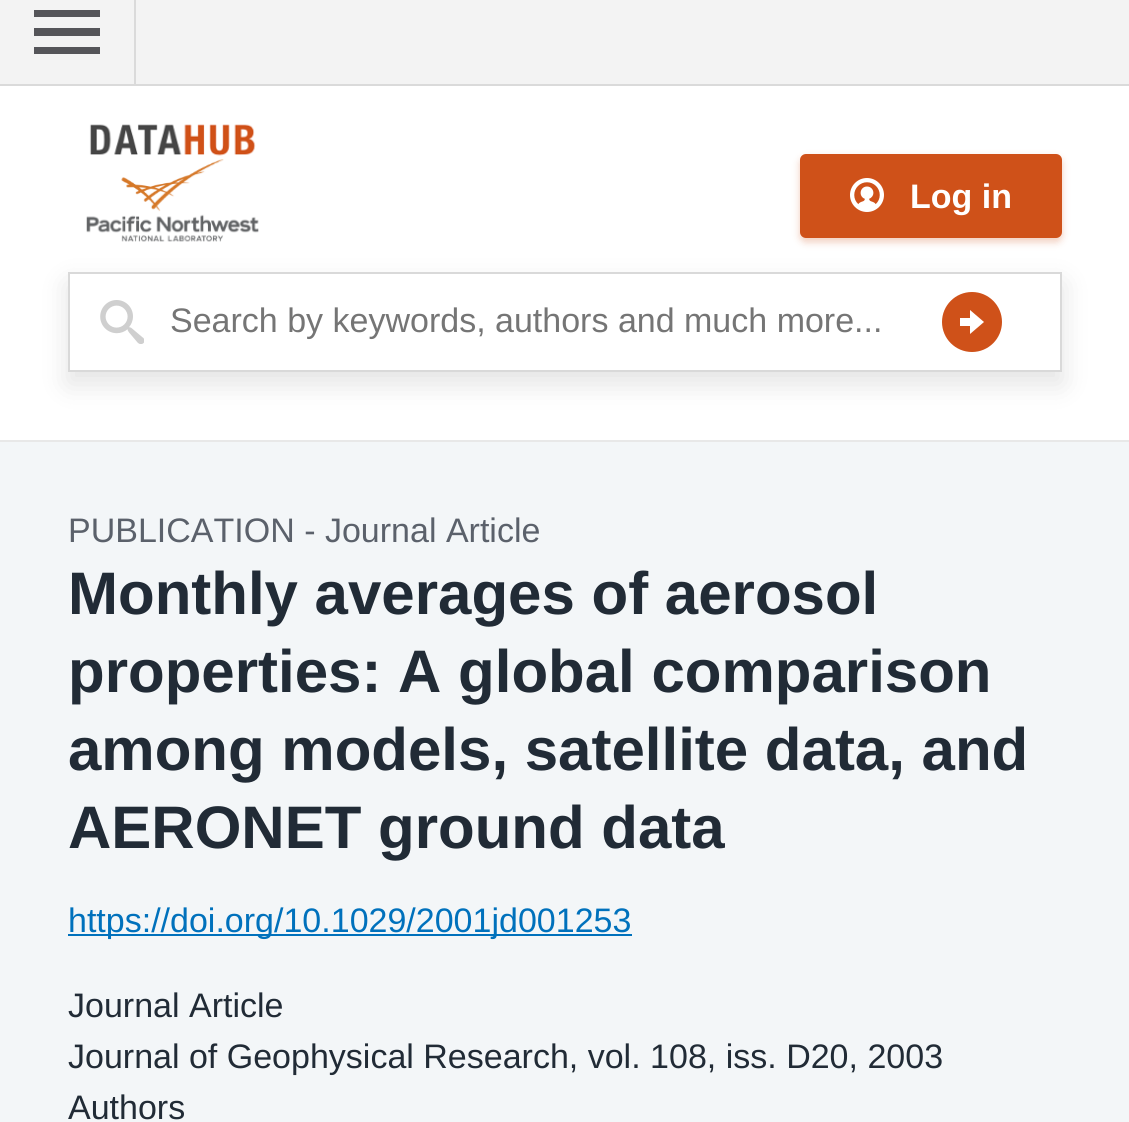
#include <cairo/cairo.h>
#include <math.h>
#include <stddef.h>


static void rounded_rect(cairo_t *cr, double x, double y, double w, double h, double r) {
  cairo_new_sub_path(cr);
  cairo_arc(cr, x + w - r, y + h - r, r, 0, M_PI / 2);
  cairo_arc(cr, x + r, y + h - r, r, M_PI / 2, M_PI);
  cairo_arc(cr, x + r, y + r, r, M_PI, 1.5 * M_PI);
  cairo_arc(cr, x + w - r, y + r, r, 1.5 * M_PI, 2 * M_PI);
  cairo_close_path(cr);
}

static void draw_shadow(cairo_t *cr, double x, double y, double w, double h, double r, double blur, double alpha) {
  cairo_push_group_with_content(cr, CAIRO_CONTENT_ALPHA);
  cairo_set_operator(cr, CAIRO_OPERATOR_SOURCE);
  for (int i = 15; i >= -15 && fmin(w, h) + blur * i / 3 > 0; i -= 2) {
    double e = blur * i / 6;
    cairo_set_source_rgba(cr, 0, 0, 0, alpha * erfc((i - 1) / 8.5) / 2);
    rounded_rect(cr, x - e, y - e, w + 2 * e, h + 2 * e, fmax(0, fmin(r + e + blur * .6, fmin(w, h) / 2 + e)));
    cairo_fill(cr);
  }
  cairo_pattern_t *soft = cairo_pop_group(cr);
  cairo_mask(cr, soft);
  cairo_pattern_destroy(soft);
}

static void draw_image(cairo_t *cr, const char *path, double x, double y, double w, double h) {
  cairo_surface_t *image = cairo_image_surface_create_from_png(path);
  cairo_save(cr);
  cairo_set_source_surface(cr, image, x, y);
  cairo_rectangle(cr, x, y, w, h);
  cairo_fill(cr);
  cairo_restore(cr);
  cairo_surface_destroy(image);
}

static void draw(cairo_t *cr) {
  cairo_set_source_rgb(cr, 243 / 255.0, 246 / 255.0, 248 / 255.0);
  cairo_paint(cr);
  cairo_set_source_rgb(cr, 243 / 255.0, 243 / 255.0, 243 / 255.0);
  cairo_rectangle(cr, 0, 0, 1129, 84);
  cairo_fill(cr);
  cairo_set_source_rgb(cr, 218 / 255.0, 218 / 255.0, 218 / 255.0);
  cairo_rectangle(cr, 0, 84, 1129, 2);
  cairo_fill(cr);
  cairo_rectangle(cr, 134, 0, 2, 86);
  cairo_fill(cr);
  cairo_set_source_rgb(cr, 85 / 255.0, 85 / 255.0, 89 / 255.0);
  cairo_new_path(cr);
  cairo_move_to(cr, 34, 54);
  cairo_line_to(cr, 100, 54);
  cairo_line_to(cr, 100, 47);
  cairo_line_to(cr, 34, 47);
  cairo_close_path(cr);
  cairo_move_to(cr, 34, 36);
  cairo_line_to(cr, 100, 36);
  cairo_line_to(cr, 100, 28);
  cairo_line_to(cr, 34, 28);
  cairo_close_path(cr);
  cairo_move_to(cr, 34, 10);
  cairo_line_to(cr, 34, 17);
  cairo_line_to(cr, 100, 17);
  cairo_line_to(cr, 100, 10);
  cairo_close_path(cr);
  cairo_fill(cr);
  cairo_set_source_rgb(cr, 1, 1, 1);
  cairo_rectangle(cr, 0, 86, 1129, 354);
  cairo_fill(cr);
  cairo_set_source_rgb(cr, 232 / 255.0, 232 / 255.0, 232 / 255.0);
  cairo_rectangle(cr, 0, 440, 1129, 2);
  cairo_fill(cr);
  draw_image(cr, "images/1.png", 86, 124, 173, 118);
  cairo_set_source_rgb(cr, 207 / 255.0, 81 / 255.0, 25 / 255.0);
  draw_shadow(cr, 800, 158, 262, 84, 6, 4, 0.29);
  cairo_set_source_rgb(cr, 207 / 255.0, 81 / 255.0, 25 / 255.0);
  rounded_rect(cr, 800, 154, 262, 84, 6);
  cairo_fill(cr);
  draw_image(cr, "images/2.png", 850, 178, 34, 34);
  cairo_save(cr);
  cairo_set_fill_rule(cr, CAIRO_FILL_RULE_EVEN_ODD);
  cairo_new_path(cr);
  cairo_move_to(cr, 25, 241);
  cairo_line_to(cr, 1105, 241);
  cairo_line_to(cr, 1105, 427);
  cairo_line_to(cr, 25, 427);
  cairo_close_path(cr);
  cairo_move_to(cr, 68, 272);
  cairo_line_to(cr, 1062, 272);
  cairo_line_to(cr, 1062, 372);
  cairo_line_to(cr, 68, 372);
  cairo_close_path(cr);
  cairo_clip(cr);
  cairo_set_source_rgb(cr, 0, 0, 0);
  draw_shadow(cr, 68, 284, 994, 100, 0, 14, 0.11);
  cairo_restore(cr);
  draw_image(cr, "images/3.png", 100, 300, 44, 44);
  cairo_rectangle(cr, 69, 273, 992, 98);
  cairo_set_source_rgb(cr, 217 / 255.0, 217 / 255.0, 217 / 255.0);
  cairo_stroke(cr);
  cairo_set_source_rgb(cr, 207 / 255.0, 81 / 255.0, 25 / 255.0);
  cairo_arc(cr, 972, 322, 30, 0, 2 * M_PI);
  cairo_fill(cr);
  cairo_set_source_rgb(cr, 1, 1, 1);
  cairo_new_path(cr);
  cairo_move_to(cr, 970, 318);
  cairo_line_to(cr, 960, 318);
  cairo_line_to(cr, 960, 326);
  cairo_line_to(cr, 970, 326);
  cairo_line_to(cr, 970, 334);
  cairo_line_to(cr, 984, 322);
  cairo_line_to(cr, 970, 310);
  cairo_close_path(cr);
  cairo_fill(cr);
  cairo_set_source_rgb(cr, 0, 113 / 255.0, 188 / 255.0);
  cairo_rectangle(cr, 68, 934, 564, 2);
  cairo_fill(cr);
  cairo_select_font_face(cr, "Liberation Sans", CAIRO_FONT_SLANT_NORMAL, CAIRO_FONT_WEIGHT_BOLD);
  cairo_set_font_size(cr, 34);
  cairo_set_source_rgb(cr, 1, 1, 1);
  cairo_move_to(cr, 910, 208);
  cairo_show_text(cr, "Log in");
  cairo_select_font_face(cr, "Liberation Sans", CAIRO_FONT_SLANT_NORMAL, CAIRO_FONT_WEIGHT_NORMAL);
  cairo_set_source_rgb(cr, 117 / 255.0, 117 / 255.0, 117 / 255.0);
  cairo_move_to(cr, 170, 332);
  cairo_show_text(cr, "Search by keywords, authors and much more...");
  cairo_set_source_rgb(cr, 91 / 255.0, 97 / 255.0, 107 / 255.0);
  cairo_move_to(cr, 68, 542);
  cairo_show_text(cr, "PUBLICATION - Journal Article");
  cairo_select_font_face(cr, "Liberation Sans", CAIRO_FONT_SLANT_NORMAL, CAIRO_FONT_WEIGHT_BOLD);
  cairo_set_font_size(cr, 60);
  cairo_set_source_rgb(cr, 33 / 255.0, 43 / 255.0, 54 / 255.0);
  cairo_move_to(cr, 68, 614);
  cairo_show_text(cr, "Monthly averages of aerosol");
  cairo_move_to(cr, 68, 692);
  cairo_show_text(cr, "properties: A global comparison");
  cairo_move_to(cr, 68, 770);
  cairo_show_text(cr, "among models, satellite data, and");
  cairo_move_to(cr, 68, 848);
  cairo_show_text(cr, "AERONET ground data");
  cairo_select_font_face(cr, "Liberation Sans", CAIRO_FONT_SLANT_NORMAL, CAIRO_FONT_WEIGHT_NORMAL);
  cairo_set_font_size(cr, 34);
  cairo_set_source_rgb(cr, 0, 113 / 255.0, 188 / 255.0);
  cairo_move_to(cr, 68, 932);
  cairo_show_text(cr, "https://doi.org/10.1029/2001jd001253");
  cairo_set_source_rgb(cr, 33 / 255.0, 43 / 255.0, 54 / 255.0);
  cairo_move_to(cr, 68, 1017);
  cairo_show_text(cr, "Journal Article");
  cairo_move_to(cr, 68, 1068);
  cairo_show_text(cr, "Journal of Geophysical Research, vol. 108, iss. D20, 2003");
  cairo_move_to(cr, 68, 1119);
  cairo_show_text(cr, "Authors");
}

int main(void) {
  cairo_surface_t *surface = cairo_image_surface_create(CAIRO_FORMAT_RGB24, 1129, 1122);
  cairo_t *cr = cairo_create(surface);
  cairo_font_options_t *options = cairo_font_options_create();
  cairo_font_options_set_hint_metrics(options, CAIRO_HINT_METRICS_OFF);
  cairo_font_options_set_hint_style(options, CAIRO_HINT_STYLE_NONE);
  cairo_set_font_options(cr, options);
  cairo_set_miter_limit(cr, 4);
  draw(cr);
  cairo_surface_write_to_png(surface, "out.png");
  cairo_font_options_destroy(options);
  cairo_destroy(cr);
  cairo_surface_destroy(surface);
  return 0;
}
